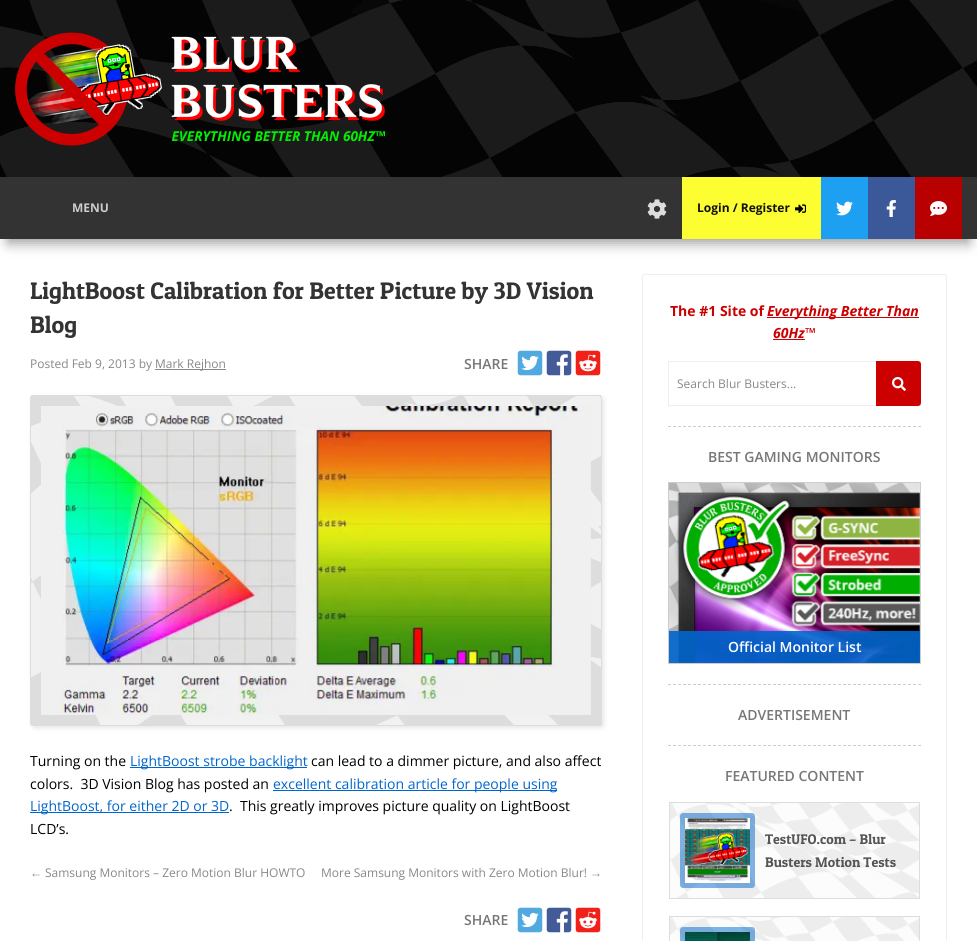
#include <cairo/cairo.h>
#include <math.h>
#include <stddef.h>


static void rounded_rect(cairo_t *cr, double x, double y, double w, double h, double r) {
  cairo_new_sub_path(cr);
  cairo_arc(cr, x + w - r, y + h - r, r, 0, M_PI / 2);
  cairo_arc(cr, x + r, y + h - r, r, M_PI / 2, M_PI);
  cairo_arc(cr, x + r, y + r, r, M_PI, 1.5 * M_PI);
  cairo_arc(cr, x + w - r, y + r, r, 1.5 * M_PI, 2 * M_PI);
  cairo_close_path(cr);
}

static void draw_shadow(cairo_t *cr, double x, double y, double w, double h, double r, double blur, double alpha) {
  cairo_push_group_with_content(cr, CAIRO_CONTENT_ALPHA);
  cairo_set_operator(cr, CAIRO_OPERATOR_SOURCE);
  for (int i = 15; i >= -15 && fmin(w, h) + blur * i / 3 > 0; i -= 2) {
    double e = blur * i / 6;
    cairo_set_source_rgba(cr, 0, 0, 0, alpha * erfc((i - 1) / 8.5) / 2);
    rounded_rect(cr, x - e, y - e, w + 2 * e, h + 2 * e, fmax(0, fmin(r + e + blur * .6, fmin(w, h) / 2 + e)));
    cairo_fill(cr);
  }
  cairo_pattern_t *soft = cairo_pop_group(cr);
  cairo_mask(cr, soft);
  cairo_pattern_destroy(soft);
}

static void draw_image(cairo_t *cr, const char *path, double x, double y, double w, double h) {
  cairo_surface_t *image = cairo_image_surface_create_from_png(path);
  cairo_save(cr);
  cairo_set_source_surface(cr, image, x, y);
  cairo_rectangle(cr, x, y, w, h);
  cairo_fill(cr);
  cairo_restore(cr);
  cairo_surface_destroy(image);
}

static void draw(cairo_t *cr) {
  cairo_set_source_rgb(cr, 1, 1, 1);
  cairo_paint(cr);
  draw_image(cr, "images/1.png", 0, 0, 977, 177);
  draw_image(cr, "images/2.png", 15, 32, 370, 114);
  cairo_set_source_rgb(cr, 0, 0, 0);
  draw_shadow(cr, 8, 204, 961, 39, 0, 6.5, 0.4);
  cairo_set_source_rgb(cr, 51 / 255.0, 51 / 255.0, 51 / 255.0);
  cairo_rectangle(cr, 0, 177, 977, 62);
  cairo_fill(cr);
  draw_image(cr, "images/3.png", 647, 199, 20, 20);
  cairo_set_source_rgb(cr, 253 / 255.0, 254 / 255.0, 49 / 255.0);
  cairo_rectangle(cr, 682, 177, 139, 62);
  cairo_fill(cr);
  draw_image(cr, "images/4.png", 795, 204, 11, 9);
  cairo_set_source_rgb(cr, 29 / 255.0, 160 / 255.0, 241 / 255.0);
  cairo_rectangle(cr, 821, 177, 47, 62);
  cairo_fill(cr);
  draw_image(cr, "images/5.png", 836, 201, 17, 15);
  cairo_set_source_rgb(cr, 59 / 255.0, 89 / 255.0, 153 / 255.0);
  cairo_rectangle(cr, 868, 177, 47, 62);
  cairo_fill(cr);
  draw_image(cr, "images/6.png", 886, 200, 10, 17);
  cairo_set_source_rgb(cr, 184 / 255.0, 0, 0);
  cairo_rectangle(cr, 915, 177, 47, 62);
  cairo_fill(cr);
  draw_image(cr, "images/7.png", 930, 201, 17, 15);
  cairo_set_source_rgb(cr, 136 / 255.0, 136 / 255.0, 136 / 255.0);
  cairo_rectangle(cr, 155, 369, 71, 1);
  cairo_fill(cr);
  draw_image(cr, "images/8.png", 517, 350, 26, 26);
  draw_image(cr, "images/9.png", 546, 350, 26, 26);
  draw_image(cr, "images/10.png", 575, 350, 26, 26);
  cairo_set_source_rgb(cr, 0, 0, 0);
  draw_shadow(cr, 32, 397, 572, 331, 3, 2.5, 0.1);
  draw_image(cr, "images/11.png", 31, 395, 570, 331);
  rounded_rect(cr, 30.5, 395.5, 571, 330, 2.5);
  cairo_set_source_rgb(cr, 221 / 255.0, 221 / 255.0, 221 / 255.0);
  cairo_set_line_width(cr, 1);
  cairo_stroke(cr);
  draw_image(cr, "images/12.png", 41, 406, 550, 309);
  cairo_set_source_rgb(cr, 0, 102 / 255.0, 204 / 255.0);
  cairo_rectangle(cr, 130, 767, 177, 1);
  cairo_fill(cr);
  cairo_rectangle(cr, 273, 790, 284, 1);
  cairo_fill(cr);
  cairo_rectangle(cr, 30, 812, 199, 1);
  cairo_fill(cr);
  draw_image(cr, "images/8.png", 517, 907, 26, 26);
  draw_image(cr, "images/9.png", 546, 907, 26, 26);
  draw_image(cr, "images/10.png", 575, 907, 26, 26);
  rounded_rect(cr, 642.5, 274.5, 304, 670, 2.5);
  cairo_set_source_rgb(cr, 238 / 255.0, 238 / 255.0, 238 / 255.0);
  cairo_stroke(cr);
  cairo_set_source_rgb(cr, 204 / 255.0, 0, 0);
  cairo_rectangle(cr, 767, 317, 152, 1);
  cairo_fill(cr);
  cairo_rectangle(cr, 773, 339, 32, 1);
  cairo_fill(cr);
  cairo_rectangle(cr, 668.5, 361.5, 252, 44);
  cairo_set_source_rgb(cr, 238 / 255.0, 238 / 255.0, 238 / 255.0);
  cairo_stroke(cr);
  cairo_set_source_rgb(cr, 204 / 255.0, 0, 0);
  cairo_new_path(cr);
  cairo_move_to(cr, 876, 361);
  cairo_line_to(cr, 918, 361);
  cairo_curve_to(cr, 919.5, 361, 921, 362.5, 921, 364);
  cairo_line_to(cr, 921, 403);
  cairo_curve_to(cr, 921, 404.5, 919.5, 406, 918, 406);
  cairo_line_to(cr, 876, 406);
  cairo_close_path(cr);
  cairo_fill(cr);
  draw_image(cr, "images/13.png", 892, 377, 14, 14);
  cairo_new_path(cr);
  cairo_move_to(cr, 668, 426.5);
  cairo_line_to(cr, 921, 426.5);
  cairo_set_source_rgb(cr, 204 / 255.0, 204 / 255.0, 204 / 255.0);
  cairo_set_dash(cr, (double[]){3, 2}, 2, 0);
  cairo_stroke(cr);
  cairo_set_source_rgb(cr, 241 / 255.0, 241 / 255.0, 241 / 255.0);
  cairo_rectangle(cr, 668.5, 482.5, 252, 181);
  cairo_fill_preserve(cr);
  cairo_set_source_rgb(cr, 204 / 255.0, 204 / 255.0, 204 / 255.0);
  cairo_set_dash(cr, NULL, 0, 0);
  cairo_stroke(cr);
  draw_image(cr, "images/14.png", 669, 483, 251, 180);
  cairo_set_source_rgba(cr, 0, 102 / 255.0, 204 / 255.0, 0.9);
  cairo_rectangle(cr, 669, 631, 251, 32);
  cairo_fill(cr);
  cairo_new_path(cr);
  cairo_move_to(cr, 668, 684.5);
  cairo_line_to(cr, 921, 684.5);
  cairo_set_source_rgb(cr, 204 / 255.0, 204 / 255.0, 204 / 255.0);
  cairo_set_dash(cr, (double[]){3, 2}, 2, 0);
  cairo_stroke(cr);
  cairo_new_path(cr);
  cairo_move_to(cr, 668, 745.5);
  cairo_line_to(cr, 921, 745.5);
  cairo_stroke(cr);
  draw_image(cr, "images/15.png", 670, 803, 249, 95);
  cairo_rectangle(cr, 669.5, 802.5, 250, 96);
  cairo_set_source_rgb(cr, 221 / 255.0, 221 / 255.0, 221 / 255.0);
  cairo_set_dash(cr, NULL, 0, 0);
  cairo_stroke(cr);
  cairo_set_source_rgba(cr, 0, 102 / 255.0, 204 / 255.0, 0.5);
  rounded_rect(cr, 680, 813, 75, 75, 3);
  cairo_fill(cr);
  draw_image(cr, "images/16.png", 685, 818, 65, 65);
  draw_image(cr, "images/17.png", 670, 917, 249, 24);
  cairo_rectangle(cr, 669.5, 916.5, 250, 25);
  cairo_set_source_rgb(cr, 221 / 255.0, 221 / 255.0, 221 / 255.0);
  cairo_stroke(cr);
  cairo_set_source_rgba(cr, 0, 102 / 255.0, 204 / 255.0, 0.5);
  rounded_rect(cr, 680, 927, 75, 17, 3);
  cairo_fill(cr);
  draw_image(cr, "images/18.png", 685, 932, 65, 9);
  cairo_select_font_face(cr, "Open Sans", CAIRO_FONT_SLANT_NORMAL, CAIRO_FONT_WEIGHT_BOLD);
  cairo_set_font_size(cr, 12);
  cairo_set_source_rgb(cr, 204 / 255.0, 204 / 255.0, 204 / 255.0);
  cairo_move_to(cr, 72, 212);
  cairo_show_text(cr, "MENU");
  cairo_set_source_rgb(cr, 17 / 255.0, 17 / 255.0, 17 / 255.0);
  cairo_move_to(cr, 697, 212);
  cairo_show_text(cr, "Login / Register");
  cairo_select_font_face(cr, "Patua One", CAIRO_FONT_SLANT_NORMAL, CAIRO_FONT_WEIGHT_NORMAL);
  cairo_set_font_size(cr, 24);
  cairo_set_source_rgb(cr, 51 / 255.0, 51 / 255.0, 51 / 255.0);
  cairo_move_to(cr, 30, 299);
  cairo_show_text(cr, "LightBoost Calibration for Better Picture by 3D Vision");
  cairo_move_to(cr, 30, 333);
  cairo_show_text(cr, "Blog");
  cairo_select_font_face(cr, "Open Sans", CAIRO_FONT_SLANT_NORMAL, CAIRO_FONT_WEIGHT_NORMAL);
  cairo_set_font_size(cr, 12);
  cairo_set_source_rgb(cr, 136 / 255.0, 136 / 255.0, 136 / 255.0);
  cairo_move_to(cr, 30, 368);
  cairo_show_text(cr, "Posted Feb 9, 2013 by");
  cairo_move_to(cr, 155, 368);
  cairo_show_text(cr, "Mark Rejhon");
  cairo_select_font_face(cr, "Open Sans SemiBold", CAIRO_FONT_SLANT_NORMAL, CAIRO_FONT_WEIGHT_NORMAL);
  cairo_set_font_size(cr, 14);
  cairo_set_source_rgb(cr, 119 / 255.0, 119 / 255.0, 119 / 255.0);
  cairo_move_to(cr, 464, 369);
  cairo_show_text(cr, "SHARE");
  cairo_select_font_face(cr, "Open Sans", CAIRO_FONT_SLANT_NORMAL, CAIRO_FONT_WEIGHT_NORMAL);
  cairo_set_source_rgb(cr, 0, 0, 0);
  cairo_move_to(cr, 30, 766);
  cairo_show_text(cr, "Turning on the");
  cairo_set_source_rgb(cr, 0, 102 / 255.0, 204 / 255.0);
  cairo_move_to(cr, 130, 766);
  cairo_show_text(cr, "LightBoost strobe backlight");
  cairo_set_source_rgb(cr, 0, 0, 0);
  cairo_move_to(cr, 311, 766);
  cairo_show_text(cr, "can lead to a dimmer picture, and also affect");
  cairo_move_to(cr, 30, 789);
  cairo_show_text(cr, "colors.  3D Vision Blog has posted an");
  cairo_set_source_rgb(cr, 0, 102 / 255.0, 204 / 255.0);
  cairo_move_to(cr, 273, 789);
  cairo_show_text(cr, "excellent calibration article for people using");
  cairo_move_to(cr, 30, 811);
  cairo_show_text(cr, "LightBoost, for either 2D or 3D");
  cairo_set_source_rgb(cr, 0, 0, 0);
  cairo_move_to(cr, 229, 811);
  cairo_show_text(cr, ".  This greatly improves picture quality on LightBoost");
  cairo_move_to(cr, 30, 834);
  cairo_show_text(cr, "LCD’s.");
  cairo_select_font_face(cr, "Liberation Sans", CAIRO_FONT_SLANT_NORMAL, CAIRO_FONT_WEIGHT_NORMAL);
  cairo_set_font_size(cr, 12);
  cairo_set_source_rgb(cr, 136 / 255.0, 136 / 255.0, 136 / 255.0);
  cairo_move_to(cr, 30, 877);
  cairo_show_text(cr, "←");
  cairo_select_font_face(cr, "Open Sans", CAIRO_FONT_SLANT_NORMAL, CAIRO_FONT_WEIGHT_NORMAL);
  cairo_move_to(cr, 45, 877);
  cairo_show_text(cr, "Samsung Monitors – Zero Motion Blur HOWTO");
  cairo_move_to(cr, 321, 877);
  cairo_show_text(cr, "More Samsung Monitors with Zero Motion Blur!");
  cairo_select_font_face(cr, "Liberation Sans", CAIRO_FONT_SLANT_NORMAL, CAIRO_FONT_WEIGHT_NORMAL);
  cairo_move_to(cr, 590, 877);
  cairo_show_text(cr, "→");
  cairo_select_font_face(cr, "Open Sans SemiBold", CAIRO_FONT_SLANT_NORMAL, CAIRO_FONT_WEIGHT_NORMAL);
  cairo_set_font_size(cr, 14);
  cairo_set_source_rgb(cr, 119 / 255.0, 119 / 255.0, 119 / 255.0);
  cairo_move_to(cr, 464, 925);
  cairo_show_text(cr, "SHARE");
  cairo_select_font_face(cr, "Open Sans", CAIRO_FONT_SLANT_NORMAL, CAIRO_FONT_WEIGHT_BOLD);
  cairo_set_source_rgb(cr, 204 / 255.0, 0, 0);
  cairo_move_to(cr, 670, 316);
  cairo_show_text(cr, "The #1 Site of");
  cairo_select_font_face(cr, "Open Sans", CAIRO_FONT_SLANT_ITALIC, CAIRO_FONT_WEIGHT_BOLD);
  cairo_move_to(cr, 767, 316);
  cairo_show_text(cr, "Everything Better Than");
  cairo_move_to(cr, 773, 338);
  cairo_show_text(cr, "60Hz");
  cairo_select_font_face(cr, "Open Sans", CAIRO_FONT_SLANT_NORMAL, CAIRO_FONT_WEIGHT_BOLD);
  cairo_move_to(cr, 805, 338);
  cairo_show_text(cr, "™");
  cairo_select_font_face(cr, "Open Sans", CAIRO_FONT_SLANT_NORMAL, CAIRO_FONT_WEIGHT_NORMAL);
  cairo_set_font_size(cr, 12);
  cairo_set_source_rgb(cr, 136 / 255.0, 136 / 255.0, 136 / 255.0);
  cairo_move_to(cr, 677, 388);
  cairo_show_text(cr, "Search Blur Busters...");
  cairo_select_font_face(cr, "Open Sans SemiBold", CAIRO_FONT_SLANT_NORMAL, CAIRO_FONT_WEIGHT_NORMAL);
  cairo_set_font_size(cr, 14);
  cairo_set_source_rgb(cr, 119 / 255.0, 119 / 255.0, 119 / 255.0);
  cairo_move_to(cr, 708, 462);
  cairo_show_text(cr, "BEST GAMING MONITORS");
  cairo_set_source_rgb(cr, 1, 1, 1);
  cairo_move_to(cr, 728, 652);
  cairo_show_text(cr, "Official Monitor List");
  cairo_set_source_rgb(cr, 119 / 255.0, 119 / 255.0, 119 / 255.0);
  cairo_move_to(cr, 738, 720);
  cairo_show_text(cr, "ADVERTISEMENT");
  cairo_move_to(cr, 725, 781);
  cairo_show_text(cr, "FEATURED CONTENT");
  cairo_save(cr);
  cairo_rectangle(cr, 765, 828, 139, 45);
  cairo_clip(cr);
  cairo_select_font_face(cr, "Patua One", CAIRO_FONT_SLANT_NORMAL, CAIRO_FONT_WEIGHT_NORMAL);
  cairo_set_source_rgb(cr, 85 / 255.0, 85 / 255.0, 85 / 255.0);
  cairo_move_to(cr, 765, 844);
  cairo_show_text(cr, "TestUFO.com – Blur");
  cairo_restore(cr);
  cairo_select_font_face(cr, "Patua One", CAIRO_FONT_SLANT_NORMAL, CAIRO_FONT_WEIGHT_NORMAL);
  cairo_set_source_rgb(cr, 85 / 255.0, 85 / 255.0, 85 / 255.0);
  cairo_move_to(cr, 765, 867);
  cairo_show_text(cr, "Busters Motion Tests");
}

int main(void) {
  cairo_surface_t *surface = cairo_image_surface_create(CAIRO_FORMAT_RGB24, 977, 941);
  cairo_t *cr = cairo_create(surface);
  cairo_font_options_t *options = cairo_font_options_create();
  cairo_font_options_set_hint_metrics(options, CAIRO_HINT_METRICS_OFF);
  cairo_font_options_set_hint_style(options, CAIRO_HINT_STYLE_NONE);
  cairo_set_font_options(cr, options);
  cairo_set_miter_limit(cr, 4);
  draw(cr);
  cairo_surface_write_to_png(surface, "out.png");
  cairo_font_options_destroy(options);
  cairo_destroy(cr);
  cairo_surface_destroy(surface);
  return 0;
}
